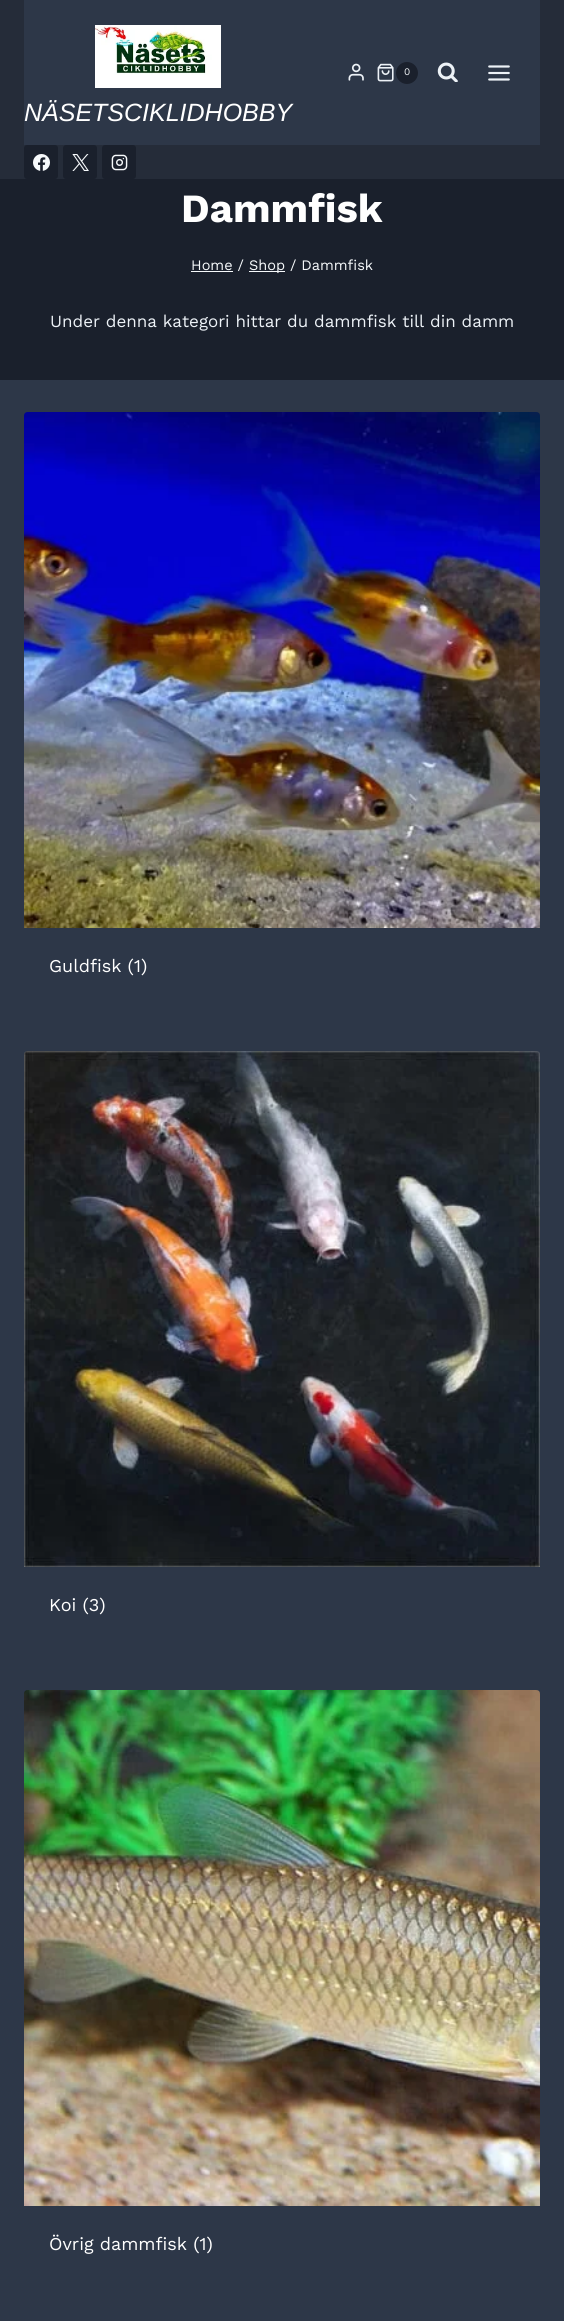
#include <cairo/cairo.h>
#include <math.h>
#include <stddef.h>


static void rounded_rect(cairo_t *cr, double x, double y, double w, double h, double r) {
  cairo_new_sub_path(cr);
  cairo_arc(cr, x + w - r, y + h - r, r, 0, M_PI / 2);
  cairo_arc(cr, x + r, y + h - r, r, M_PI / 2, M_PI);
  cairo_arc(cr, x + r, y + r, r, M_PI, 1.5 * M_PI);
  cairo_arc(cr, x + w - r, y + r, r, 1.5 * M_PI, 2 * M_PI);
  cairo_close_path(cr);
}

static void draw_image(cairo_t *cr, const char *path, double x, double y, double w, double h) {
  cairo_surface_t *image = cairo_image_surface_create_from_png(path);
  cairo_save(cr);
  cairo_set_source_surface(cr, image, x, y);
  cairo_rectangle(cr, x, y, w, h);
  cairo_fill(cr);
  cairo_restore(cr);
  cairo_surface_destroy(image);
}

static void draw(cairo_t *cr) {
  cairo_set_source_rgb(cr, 45 / 255.0, 55 / 255.0, 72 / 255.0);
  cairo_paint(cr);
  cairo_set_source_rgb(cr, 37 / 255.0, 44 / 255.0, 57 / 255.0);
  cairo_rectangle(cr, 0, 0, 564, 179);
  cairo_fill(cr);
  cairo_set_source_rgb(cr, 45 / 255.0, 55 / 255.0, 72 / 255.0);
  cairo_rectangle(cr, 24, 0, 516, 145);
  cairo_fill(cr);
  draw_image(cr, "images/1.png", 348, 63, 16, 18);
  draw_image(cr, "images/2.png", 377, 63, 17, 19);
  cairo_set_source_rgb(cr, 26 / 255.0, 32 / 255.0, 44 / 255.0);
  cairo_arc(cr, 407, 73, 11, 0, 2 * M_PI);
  cairo_fill(cr);
  draw_image(cr, "images/3.png", 437, 62, 21, 20);
  draw_image(cr, "images/4.png", 488, 65, 22, 16);
  draw_image(cr, "images/5.png", 95, 25, 126, 63);
  rounded_rect(cr, 24, 145, 34, 34, 3);
  cairo_fill(cr);
  draw_image(cr, "images/6.png", 33, 154, 17, 17);
  rounded_rect(cr, 63, 145, 34, 34, 3);
  cairo_fill(cr);
  draw_image(cr, "images/7.png", 72, 154, 17, 17);
  rounded_rect(cr, 102, 145, 34, 34, 3);
  cairo_fill(cr);
  draw_image(cr, "images/8.png", 111, 154, 17, 17);
  cairo_rectangle(cr, 0, 179, 564, 201);
  cairo_fill(cr);
  cairo_set_source_rgb(cr, 247 / 255.0, 250 / 255.0, 252 / 255.0);
  cairo_rectangle(cr, 191, 271, 42, 1);
  cairo_fill(cr);
  cairo_rectangle(cr, 249, 271, 36, 1);
  cairo_fill(cr);
  draw_image(cr, "images/9.png", 24, 412, 516, 516);
  draw_image(cr, "images/10.png", 24, 1051, 516, 516);
  draw_image(cr, "images/11.png", 24, 1690, 516, 516);
  cairo_select_font_face(cr, "Work Sans", CAIRO_FONT_SLANT_NORMAL, CAIRO_FONT_WEIGHT_NORMAL);
  cairo_set_font_size(cr, 10);
  cairo_move_to(cr, 404, 75);
  cairo_show_text(cr, "0");
  cairo_select_font_face(cr, "Liberation Sans", CAIRO_FONT_SLANT_ITALIC, CAIRO_FONT_WEIGHT_NORMAL);
  cairo_set_font_size(cr, 25);
  cairo_set_source_rgb(cr, 1, 1, 1);
  cairo_move_to(cr, 24, 121);
  cairo_show_text(cr, "NÄSETSCIKLIDHOBBY");
  cairo_select_font_face(cr, "Work Sans", CAIRO_FONT_SLANT_NORMAL, CAIRO_FONT_WEIGHT_BOLD);
  cairo_set_font_size(cr, 40);
  cairo_move_to(cr, 181, 222);
  cairo_show_text(cr, "Dammfisk");
  cairo_select_font_face(cr, "Work Sans", CAIRO_FONT_SLANT_NORMAL, CAIRO_FONT_WEIGHT_NORMAL);
  cairo_set_font_size(cr, 14.5);
  cairo_set_source_rgb(cr, 247 / 255.0, 250 / 255.0, 252 / 255.0);
  cairo_move_to(cr, 191, 270);
  cairo_show_text(cr, "Home /");
  cairo_move_to(cr, 249, 270);
  cairo_show_text(cr, "Shop / Dammfisk");
  cairo_set_font_size(cr, 17);
  cairo_set_source_rgb(cr, 237 / 255.0, 242 / 255.0, 247 / 255.0);
  cairo_move_to(cr, 50, 327);
  cairo_show_text(cr, "Under denna kategori hittar du dammfisk till din damm");
  cairo_set_font_size(cr, 18);
  cairo_set_source_rgb(cr, 1, 1, 1);
  cairo_move_to(cr, 49, 972);
  cairo_show_text(cr, "Guldfisk (1)");
  cairo_move_to(cr, 49, 1611);
  cairo_show_text(cr, "Koi (3)");
  cairo_move_to(cr, 49, 2250);
  cairo_show_text(cr, "Övrig dammfisk (1)");
}

int main(void) {
  cairo_surface_t *surface = cairo_image_surface_create(CAIRO_FORMAT_RGB24, 564, 2321);
  cairo_t *cr = cairo_create(surface);
  cairo_font_options_t *options = cairo_font_options_create();
  cairo_font_options_set_hint_metrics(options, CAIRO_HINT_METRICS_OFF);
  cairo_font_options_set_hint_style(options, CAIRO_HINT_STYLE_NONE);
  cairo_set_font_options(cr, options);
  cairo_set_miter_limit(cr, 4);
  draw(cr);
  cairo_surface_write_to_png(surface, "out.png");
  cairo_font_options_destroy(options);
  cairo_destroy(cr);
  cairo_surface_destroy(surface);
  return 0;
}
